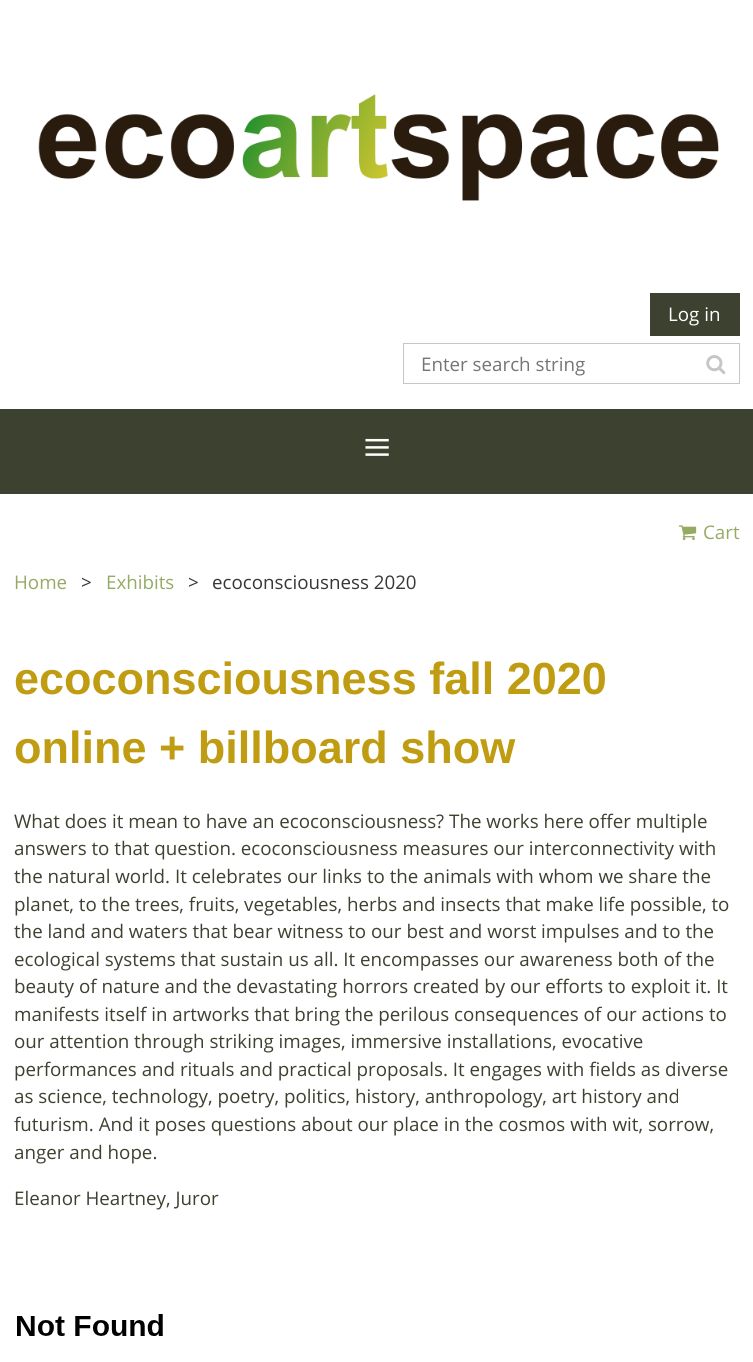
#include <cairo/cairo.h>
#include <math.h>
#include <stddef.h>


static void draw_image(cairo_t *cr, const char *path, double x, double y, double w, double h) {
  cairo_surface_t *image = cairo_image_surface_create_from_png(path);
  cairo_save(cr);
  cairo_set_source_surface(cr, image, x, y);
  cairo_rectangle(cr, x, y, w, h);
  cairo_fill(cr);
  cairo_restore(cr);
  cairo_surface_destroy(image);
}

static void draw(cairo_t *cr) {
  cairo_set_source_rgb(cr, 1, 1, 1);
  cairo_paint(cr);
  draw_image(cr, "images/1.png", 38, 94, 681, 107);
  cairo_set_source_rgb(cr, 61 / 255.0, 66 / 255.0, 48 / 255.0);
  cairo_rectangle(cr, 650, 293, 90, 43);
  cairo_fill(cr);
  cairo_rectangle(cr, 403.5, 343.5, 336, 40);
  cairo_set_source_rgb(cr, 198 / 255.0, 198 / 255.0, 198 / 255.0);
  cairo_set_line_width(cr, 1);
  cairo_stroke(cr);
  draw_image(cr, "images/2.png", 706, 355, 20, 20);
  cairo_set_source_rgb(cr, 61 / 255.0, 66 / 255.0, 48 / 255.0);
  cairo_rectangle(cr, 0, 409, 753, 85);
  cairo_fill(cr);
  draw_image(cr, "images/3.png", 678, 525, 19, 16);
  draw_image(cr, "images/4.png", 17, 1314, 146, 22);
  cairo_select_font_face(cr, "Open Sans", CAIRO_FONT_SLANT_NORMAL, CAIRO_FONT_WEIGHT_NORMAL);
  cairo_set_font_size(cr, 18.75);
  cairo_set_source_rgb(cr, 1, 1, 1);
  cairo_move_to(cr, 668, 321);
  cairo_show_text(cr, "Log in");
  cairo_set_source_rgb(cr, 117 / 255.0, 117 / 255.0, 117 / 255.0);
  cairo_move_to(cr, 421, 371);
  cairo_show_text(cr, "Enter search string");
  cairo_select_font_face(cr, "Liberation Serif", CAIRO_FONT_SLANT_NORMAL, CAIRO_FONT_WEIGHT_NORMAL);
  cairo_set_font_size(cr, 50);
  cairo_set_source_rgb(cr, 1, 1, 1);
  cairo_move_to(cr, 363, 464);
  cairo_show_text(cr, "≡");
  cairo_select_font_face(cr, "Open Sans", CAIRO_FONT_SLANT_NORMAL, CAIRO_FONT_WEIGHT_NORMAL);
  cairo_set_font_size(cr, 18.75);
  cairo_set_source_rgb(cr, 149 / 255.0, 171 / 255.0, 99 / 255.0);
  cairo_move_to(cr, 703, 539);
  cairo_show_text(cr, "Cart");
  cairo_move_to(cr, 14, 589);
  cairo_show_text(cr, "Home");
  cairo_set_source_rgb(cr, 55 / 255.0, 55 / 255.0, 55 / 255.0);
  cairo_move_to(cr, 81, 589);
  cairo_show_text(cr, ">");
  cairo_set_source_rgb(cr, 149 / 255.0, 171 / 255.0, 99 / 255.0);
  cairo_move_to(cr, 106, 589);
  cairo_show_text(cr, "Exhibits");
  cairo_set_source_rgb(cr, 55 / 255.0, 55 / 255.0, 55 / 255.0);
  cairo_move_to(cr, 188, 589);
  cairo_show_text(cr, ">");
  cairo_move_to(cr, 212, 589);
  cairo_show_text(cr, "ecoconsciousness 2020");
  cairo_select_font_face(cr, "Liberation Sans", CAIRO_FONT_SLANT_NORMAL, CAIRO_FONT_WEIGHT_BOLD);
  cairo_set_font_size(cr, 45);
  cairo_set_source_rgb(cr, 191 / 255.0, 156 / 255.0, 17 / 255.0);
  cairo_move_to(cr, 14, 694);
  cairo_show_text(cr, "ecoconsciousness fall 2020");
  cairo_move_to(cr, 14, 763);
  cairo_show_text(cr, "online + billboard show");
  cairo_select_font_face(cr, "Open Sans", CAIRO_FONT_SLANT_NORMAL, CAIRO_FONT_WEIGHT_NORMAL);
  cairo_set_font_size(cr, 18.75);
  cairo_set_source_rgb(cr, 61 / 255.0, 66 / 255.0, 48 / 255.0);
  cairo_move_to(cr, 14, 828);
  cairo_show_text(cr, "What does it mean to have an ecoconsciousness? The works here offer multiple");
  cairo_move_to(cr, 14, 855);
  cairo_show_text(cr, "answers to that question. ecoconsciousness measures our interconnectivity with");
  cairo_move_to(cr, 14, 883);
  cairo_show_text(cr, "the natural world. It celebrates our links to the animals with whom we share the");
  cairo_move_to(cr, 14, 911);
  cairo_show_text(cr, "planet, to the trees, fruits, vegetables, herbs and insects that make life possible, to");
  cairo_move_to(cr, 14, 938);
  cairo_show_text(cr, "the land and waters that bear witness to our best and worst impulses and to the");
  cairo_move_to(cr, 14, 966);
  cairo_show_text(cr, "ecological systems that sustain us all. It encompasses our awareness both of the");
  cairo_move_to(cr, 14, 993);
  cairo_show_text(cr, "beauty of nature and the devastating horrors created by our efforts to exploit it. It");
  cairo_move_to(cr, 14, 1021);
  cairo_show_text(cr, "manifests itself in artworks that bring the perilous consequences of our actions to");
  cairo_move_to(cr, 14, 1048);
  cairo_show_text(cr, "our attention through striking images, immersive installations, evocative");
  cairo_move_to(cr, 14, 1076);
  cairo_show_text(cr, "performances and rituals and practical proposals. It engages with fields as diverse");
  cairo_move_to(cr, 14, 1103);
  cairo_show_text(cr, "as science, technology, poetry, politics, history, anthropology, art history and");
  cairo_move_to(cr, 14, 1131);
  cairo_show_text(cr, "futurism. And it poses questions about our place in the cosmos with wit, sorrow,");
  cairo_move_to(cr, 14, 1159);
  cairo_show_text(cr, "anger and hope.");
  cairo_move_to(cr, 14, 1205);
  cairo_show_text(cr, "Eleanor Heartney, Juror");
}

int main(void) {
  cairo_surface_t *surface = cairo_image_surface_create(CAIRO_FORMAT_RGB24, 753, 1362);
  cairo_t *cr = cairo_create(surface);
  cairo_font_options_t *options = cairo_font_options_create();
  cairo_font_options_set_hint_metrics(options, CAIRO_HINT_METRICS_OFF);
  cairo_font_options_set_hint_style(options, CAIRO_HINT_STYLE_NONE);
  cairo_set_font_options(cr, options);
  cairo_set_miter_limit(cr, 4);
  draw(cr);
  cairo_surface_write_to_png(surface, "out.png");
  cairo_font_options_destroy(options);
  cairo_destroy(cr);
  cairo_surface_destroy(surface);
  return 0;
}
